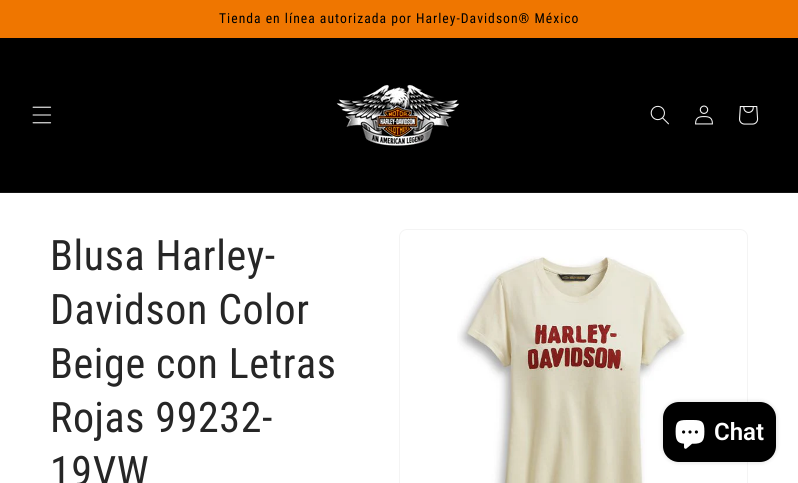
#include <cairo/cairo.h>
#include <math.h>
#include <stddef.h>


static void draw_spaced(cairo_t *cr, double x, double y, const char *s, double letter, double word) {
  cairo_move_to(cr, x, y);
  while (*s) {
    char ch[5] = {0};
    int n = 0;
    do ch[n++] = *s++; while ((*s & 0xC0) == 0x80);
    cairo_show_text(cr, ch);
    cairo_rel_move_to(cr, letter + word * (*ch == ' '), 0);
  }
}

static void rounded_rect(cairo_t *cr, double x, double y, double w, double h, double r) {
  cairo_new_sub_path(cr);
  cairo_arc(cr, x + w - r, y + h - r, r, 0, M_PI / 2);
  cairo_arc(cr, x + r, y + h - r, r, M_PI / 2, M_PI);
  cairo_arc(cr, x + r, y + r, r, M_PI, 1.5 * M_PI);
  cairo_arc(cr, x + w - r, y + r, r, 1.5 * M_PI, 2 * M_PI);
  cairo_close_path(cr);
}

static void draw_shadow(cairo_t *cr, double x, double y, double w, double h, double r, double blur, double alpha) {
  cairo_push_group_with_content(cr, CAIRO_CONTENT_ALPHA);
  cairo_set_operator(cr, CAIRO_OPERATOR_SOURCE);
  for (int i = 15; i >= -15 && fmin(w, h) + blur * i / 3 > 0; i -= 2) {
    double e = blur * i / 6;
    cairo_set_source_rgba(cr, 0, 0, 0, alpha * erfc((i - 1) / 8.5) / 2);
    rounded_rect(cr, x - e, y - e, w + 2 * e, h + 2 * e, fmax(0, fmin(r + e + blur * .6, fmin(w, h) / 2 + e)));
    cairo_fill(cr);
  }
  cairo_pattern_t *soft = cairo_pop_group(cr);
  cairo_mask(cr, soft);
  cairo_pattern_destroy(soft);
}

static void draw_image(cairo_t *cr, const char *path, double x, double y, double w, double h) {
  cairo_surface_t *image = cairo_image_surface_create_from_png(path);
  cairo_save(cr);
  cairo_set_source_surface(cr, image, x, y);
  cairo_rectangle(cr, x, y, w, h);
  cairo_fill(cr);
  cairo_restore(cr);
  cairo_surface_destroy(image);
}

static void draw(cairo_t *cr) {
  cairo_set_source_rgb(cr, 1, 1, 1);
  cairo_paint(cr);
  cairo_set_source_rgb(cr, 239 / 255.0, 118 / 255.0, 0);
  cairo_rectangle(cr, 0, 0, 798, 38);
  cairo_fill(cr);
  cairo_set_source_rgb(cr, 0, 0, 0);
  cairo_rectangle(cr, 0, 38, 798, 154);
  cairo_fill(cr);
  cairo_set_source_rgb(cr, 20 / 255.0, 20 / 255.0, 20 / 255.0);
  cairo_rectangle(cr, 0, 192, 798, 1);
  cairo_fill(cr);
  draw_image(cr, "images/1.png", 32, 106, 20, 18);
  draw_image(cr, "images/2.png", 336, 84, 124, 62);
  draw_image(cr, "images/3.png", 650, 105, 19, 20);
  draw_image(cr, "images/4.png", 695, 105, 18, 20);
  draw_image(cr, "images/5.png", 739, 106, 20, 19);
  rounded_rect(cr, 399.5, 229.5, 348, 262, 7.5);
  cairo_set_source_rgb(cr, 244 / 255.0, 244 / 255.0, 244 / 255.0);
  cairo_set_line_width(cr, 1);
  cairo_stroke(cr);
  draw_image(cr, "images/6.png", 457, 256, 230, 227);
  cairo_set_source_rgb(cr, 0, 0, 0);
  draw_shadow(cr, 663, 402, 113, 60, 16, 2.5, 0.15);
  cairo_set_source_rgb(cr, 0, 0, 0);
  rounded_rect(cr, 663, 402, 113, 60, 16);
  cairo_fill(cr);
  draw_image(cr, "images/7.png", 675, 420, 30, 29);
  cairo_select_font_face(cr, "Roboto Condensed", CAIRO_FONT_SLANT_NORMAL, CAIRO_FONT_WEIGHT_NORMAL);
  cairo_set_font_size(cr, 13.65);
  draw_spaced(cr, 219, 23, "Tienda en línea autorizada por Harley-Davidson® México", 1, 0);
  cairo_set_font_size(cr, 42);
  cairo_set_source_rgb(cr, 38 / 255.0, 38 / 255.0, 38 / 255.0);
  draw_spaced(cr, 50, 270, "Blusa Harley-", 0.6, 0);
  draw_spaced(cr, 50, 324, "Davidson Color", 0.6, 0);
  draw_spaced(cr, 50, 378, "Beige con Letras", 0.6, 0);
  draw_spaced(cr, 50, 432, "Rojas 99232-", 0.6, 0);
  draw_spaced(cr, 50, 486, "19VW", 0.6, 0);
  cairo_select_font_face(cr, "Roboto SemiBold", CAIRO_FONT_SLANT_NORMAL, CAIRO_FONT_WEIGHT_NORMAL);
  cairo_set_font_size(cr, 24);
  cairo_set_source_rgb(cr, 1, 1, 1);
  cairo_move_to(cr, 714, 440);
  cairo_show_text(cr, "Chat");
}

int main(void) {
  cairo_surface_t *surface = cairo_image_surface_create(CAIRO_FORMAT_RGB24, 798, 483);
  cairo_t *cr = cairo_create(surface);
  cairo_font_options_t *options = cairo_font_options_create();
  cairo_font_options_set_hint_metrics(options, CAIRO_HINT_METRICS_OFF);
  cairo_font_options_set_hint_style(options, CAIRO_HINT_STYLE_NONE);
  cairo_set_font_options(cr, options);
  cairo_set_miter_limit(cr, 4);
  draw(cr);
  cairo_surface_write_to_png(surface, "out.png");
  cairo_font_options_destroy(options);
  cairo_destroy(cr);
  cairo_surface_destroy(surface);
  return 0;
}
